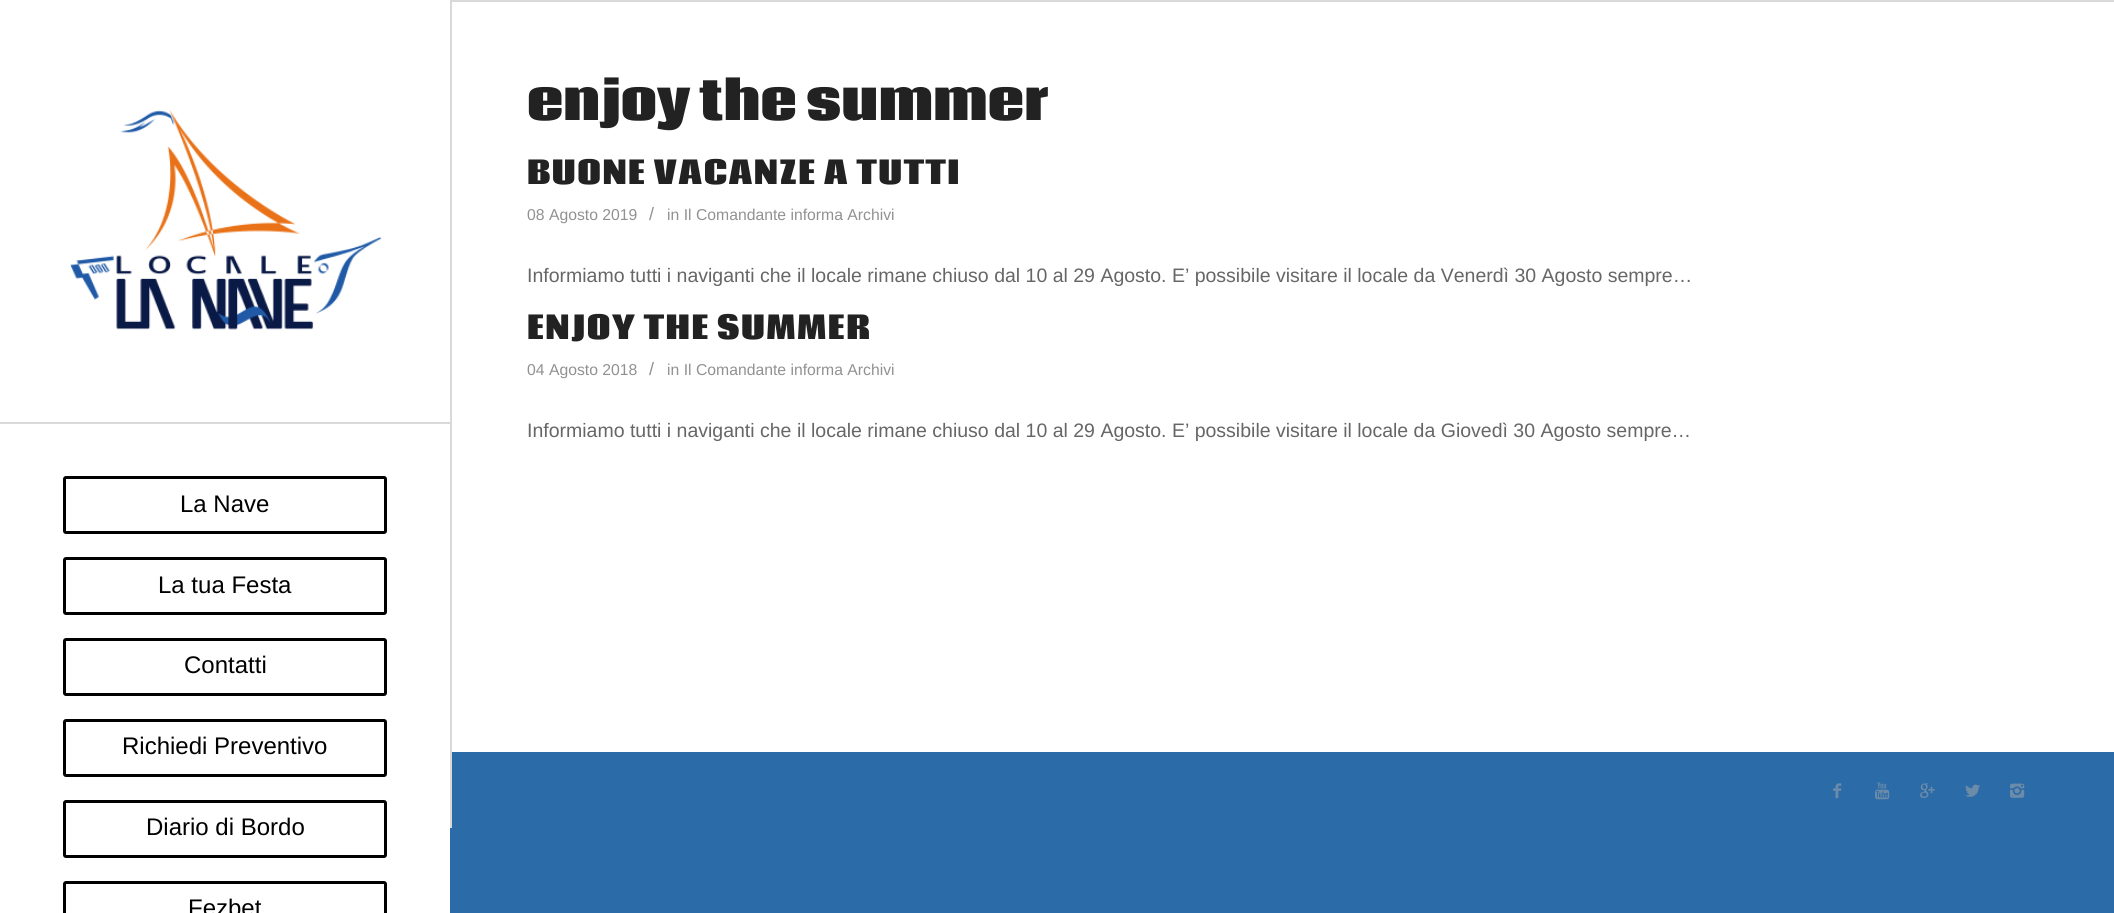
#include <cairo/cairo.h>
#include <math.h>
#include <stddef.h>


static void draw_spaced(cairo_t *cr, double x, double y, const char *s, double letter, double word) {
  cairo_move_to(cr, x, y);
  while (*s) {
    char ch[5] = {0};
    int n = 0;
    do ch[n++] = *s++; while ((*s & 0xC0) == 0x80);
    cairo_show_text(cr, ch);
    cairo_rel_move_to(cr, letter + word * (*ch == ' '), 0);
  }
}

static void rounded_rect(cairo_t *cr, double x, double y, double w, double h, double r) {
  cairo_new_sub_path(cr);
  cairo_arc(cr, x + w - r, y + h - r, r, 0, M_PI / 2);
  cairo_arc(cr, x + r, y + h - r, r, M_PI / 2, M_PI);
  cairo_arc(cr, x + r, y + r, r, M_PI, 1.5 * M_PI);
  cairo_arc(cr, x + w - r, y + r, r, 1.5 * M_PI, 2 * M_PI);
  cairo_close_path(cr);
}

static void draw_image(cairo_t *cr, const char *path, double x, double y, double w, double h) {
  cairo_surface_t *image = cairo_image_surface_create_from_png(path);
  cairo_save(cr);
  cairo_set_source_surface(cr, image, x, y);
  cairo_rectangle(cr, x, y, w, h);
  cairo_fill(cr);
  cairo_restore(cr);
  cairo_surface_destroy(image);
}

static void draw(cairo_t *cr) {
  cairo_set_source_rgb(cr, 43 / 255.0, 107 / 255.0, 168 / 255.0);
  cairo_paint(cr);
  cairo_set_source_rgb(cr, 1, 1, 1);
  cairo_rectangle(cr, 452, 2, 1662, 750);
  cairo_fill(cr);
  cairo_set_source_rgb(cr, 217 / 255.0, 217 / 255.0, 217 / 255.0);
  cairo_rectangle(cr, 450, 0, 2, 828);
  cairo_fill(cr);
  cairo_rectangle(cr, 452, 0, 1662, 2);
  cairo_fill(cr);
  draw_image(cr, "images/1.png", 1833, 783, 9, 16);
  draw_image(cr, "images/2.png", 1875, 782, 15, 18);
  draw_image(cr, "images/3.png", 1920, 783, 15, 15);
  draw_image(cr, "images/4.png", 1965, 784, 15, 13);
  draw_image(cr, "images/5.png", 2010, 783, 15, 15);
  cairo_set_source_rgb(cr, 1, 1, 1);
  cairo_rectangle(cr, 0, 0, 450, 913);
  cairo_fill(cr);
  cairo_set_source_rgb(cr, 217 / 255.0, 217 / 255.0, 217 / 255.0);
  cairo_rectangle(cr, 0, 422, 450, 2);
  cairo_fill(cr);
  draw_image(cr, "images/6.png", 70, 109, 312, 221);
  rounded_rect(cr, 64.5, 477.5, 321, 55, 1.5);
  cairo_set_source_rgb(cr, 0, 0, 0);
  cairo_set_line_width(cr, 3);
  cairo_stroke(cr);
  rounded_rect(cr, 64.5, 558.5, 321, 55, 1.5);
  cairo_stroke(cr);
  rounded_rect(cr, 64.5, 639.5, 321, 55, 1.5);
  cairo_stroke(cr);
  rounded_rect(cr, 64.5, 720.5, 321, 55, 1.5);
  cairo_stroke(cr);
  rounded_rect(cr, 64.5, 801.5, 321, 55, 1.5);
  cairo_stroke(cr);
  rounded_rect(cr, 64.5, 882.5, 321, 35, 1.5);
  cairo_stroke(cr);
  cairo_select_font_face(cr, "Coda ExtraBold", CAIRO_FONT_SLANT_NORMAL, CAIRO_FONT_WEIGHT_NORMAL);
  cairo_set_font_size(cr, 51);
  cairo_set_source_rgb(cr, 34 / 255.0, 34 / 255.0, 34 / 255.0);
  cairo_move_to(cr, 527, 120);
  cairo_show_text(cr, "enjoy the summer");
  cairo_set_font_size(cr, 31.5);
  draw_spaced(cr, 527, 184, "BUONE VACANZE A TUTTI", 1.5, 0);
  cairo_select_font_face(cr, "Liberation Sans", CAIRO_FONT_SLANT_NORMAL, CAIRO_FONT_WEIGHT_NORMAL);
  cairo_set_font_size(cr, 15.75);
  cairo_set_source_rgb(cr, 145 / 255.0, 145 / 255.0, 145 / 255.0);
  cairo_move_to(cr, 527, 220);
  cairo_show_text(cr, "08 Agosto 2019");
  cairo_set_font_size(cr, 18);
  cairo_move_to(cr, 649, 220);
  cairo_show_text(cr, "/");
  cairo_set_font_size(cr, 15.75);
  cairo_move_to(cr, 667, 220);
  cairo_show_text(cr, "in Il Comandante informa Archivi");
  cairo_set_font_size(cr, 19.5);
  cairo_set_source_rgb(cr, 102 / 255.0, 102 / 255.0, 102 / 255.0);
  cairo_move_to(cr, 527, 282);
  cairo_show_text(cr, "Informiamo tutti i naviganti che il locale rimane chiuso dal 10 al 29 Agosto. E’ possibile visitare il locale da Venerdì 30 Agosto sempre…");
  cairo_select_font_face(cr, "Coda ExtraBold", CAIRO_FONT_SLANT_NORMAL, CAIRO_FONT_WEIGHT_NORMAL);
  cairo_set_font_size(cr, 31.5);
  cairo_set_source_rgb(cr, 34 / 255.0, 34 / 255.0, 34 / 255.0);
  draw_spaced(cr, 527, 339, "ENJOY THE SUMMER", 1.5, 0);
  cairo_select_font_face(cr, "Liberation Sans", CAIRO_FONT_SLANT_NORMAL, CAIRO_FONT_WEIGHT_NORMAL);
  cairo_set_font_size(cr, 15.75);
  cairo_set_source_rgb(cr, 145 / 255.0, 145 / 255.0, 145 / 255.0);
  cairo_move_to(cr, 527, 375);
  cairo_show_text(cr, "04 Agosto 2018");
  cairo_set_font_size(cr, 18);
  cairo_move_to(cr, 649, 375);
  cairo_show_text(cr, "/");
  cairo_set_font_size(cr, 15.75);
  cairo_move_to(cr, 667, 375);
  cairo_show_text(cr, "in Il Comandante informa Archivi");
  cairo_set_font_size(cr, 19.5);
  cairo_set_source_rgb(cr, 102 / 255.0, 102 / 255.0, 102 / 255.0);
  cairo_move_to(cr, 527, 437);
  cairo_show_text(cr, "Informiamo tutti i naviganti che il locale rimane chiuso dal 10 al 29 Agosto. E’ possibile visitare il locale da Giovedì 30 Agosto sempre…");
  cairo_set_font_size(cr, 24);
  cairo_set_source_rgb(cr, 0, 0, 0);
  cairo_move_to(cr, 180, 512);
  cairo_show_text(cr, "La Nave");
  cairo_move_to(cr, 158, 593);
  cairo_show_text(cr, "La tua Festa");
  cairo_move_to(cr, 184, 673);
  cairo_show_text(cr, "Contatti");
  cairo_move_to(cr, 122, 754);
  cairo_show_text(cr, "Richiedi Preventivo");
  cairo_move_to(cr, 146, 835);
  cairo_show_text(cr, "Diario di Bordo");
  cairo_move_to(cr, 188, 916);
  cairo_show_text(cr, "Fezbet");
}

int main(void) {
  cairo_surface_t *surface = cairo_image_surface_create(CAIRO_FORMAT_RGB24, 2114, 913);
  cairo_t *cr = cairo_create(surface);
  cairo_font_options_t *options = cairo_font_options_create();
  cairo_font_options_set_hint_metrics(options, CAIRO_HINT_METRICS_OFF);
  cairo_font_options_set_hint_style(options, CAIRO_HINT_STYLE_NONE);
  cairo_set_font_options(cr, options);
  cairo_set_miter_limit(cr, 4);
  draw(cr);
  cairo_surface_write_to_png(surface, "out.png");
  cairo_font_options_destroy(options);
  cairo_destroy(cr);
  cairo_surface_destroy(surface);
  return 0;
}
